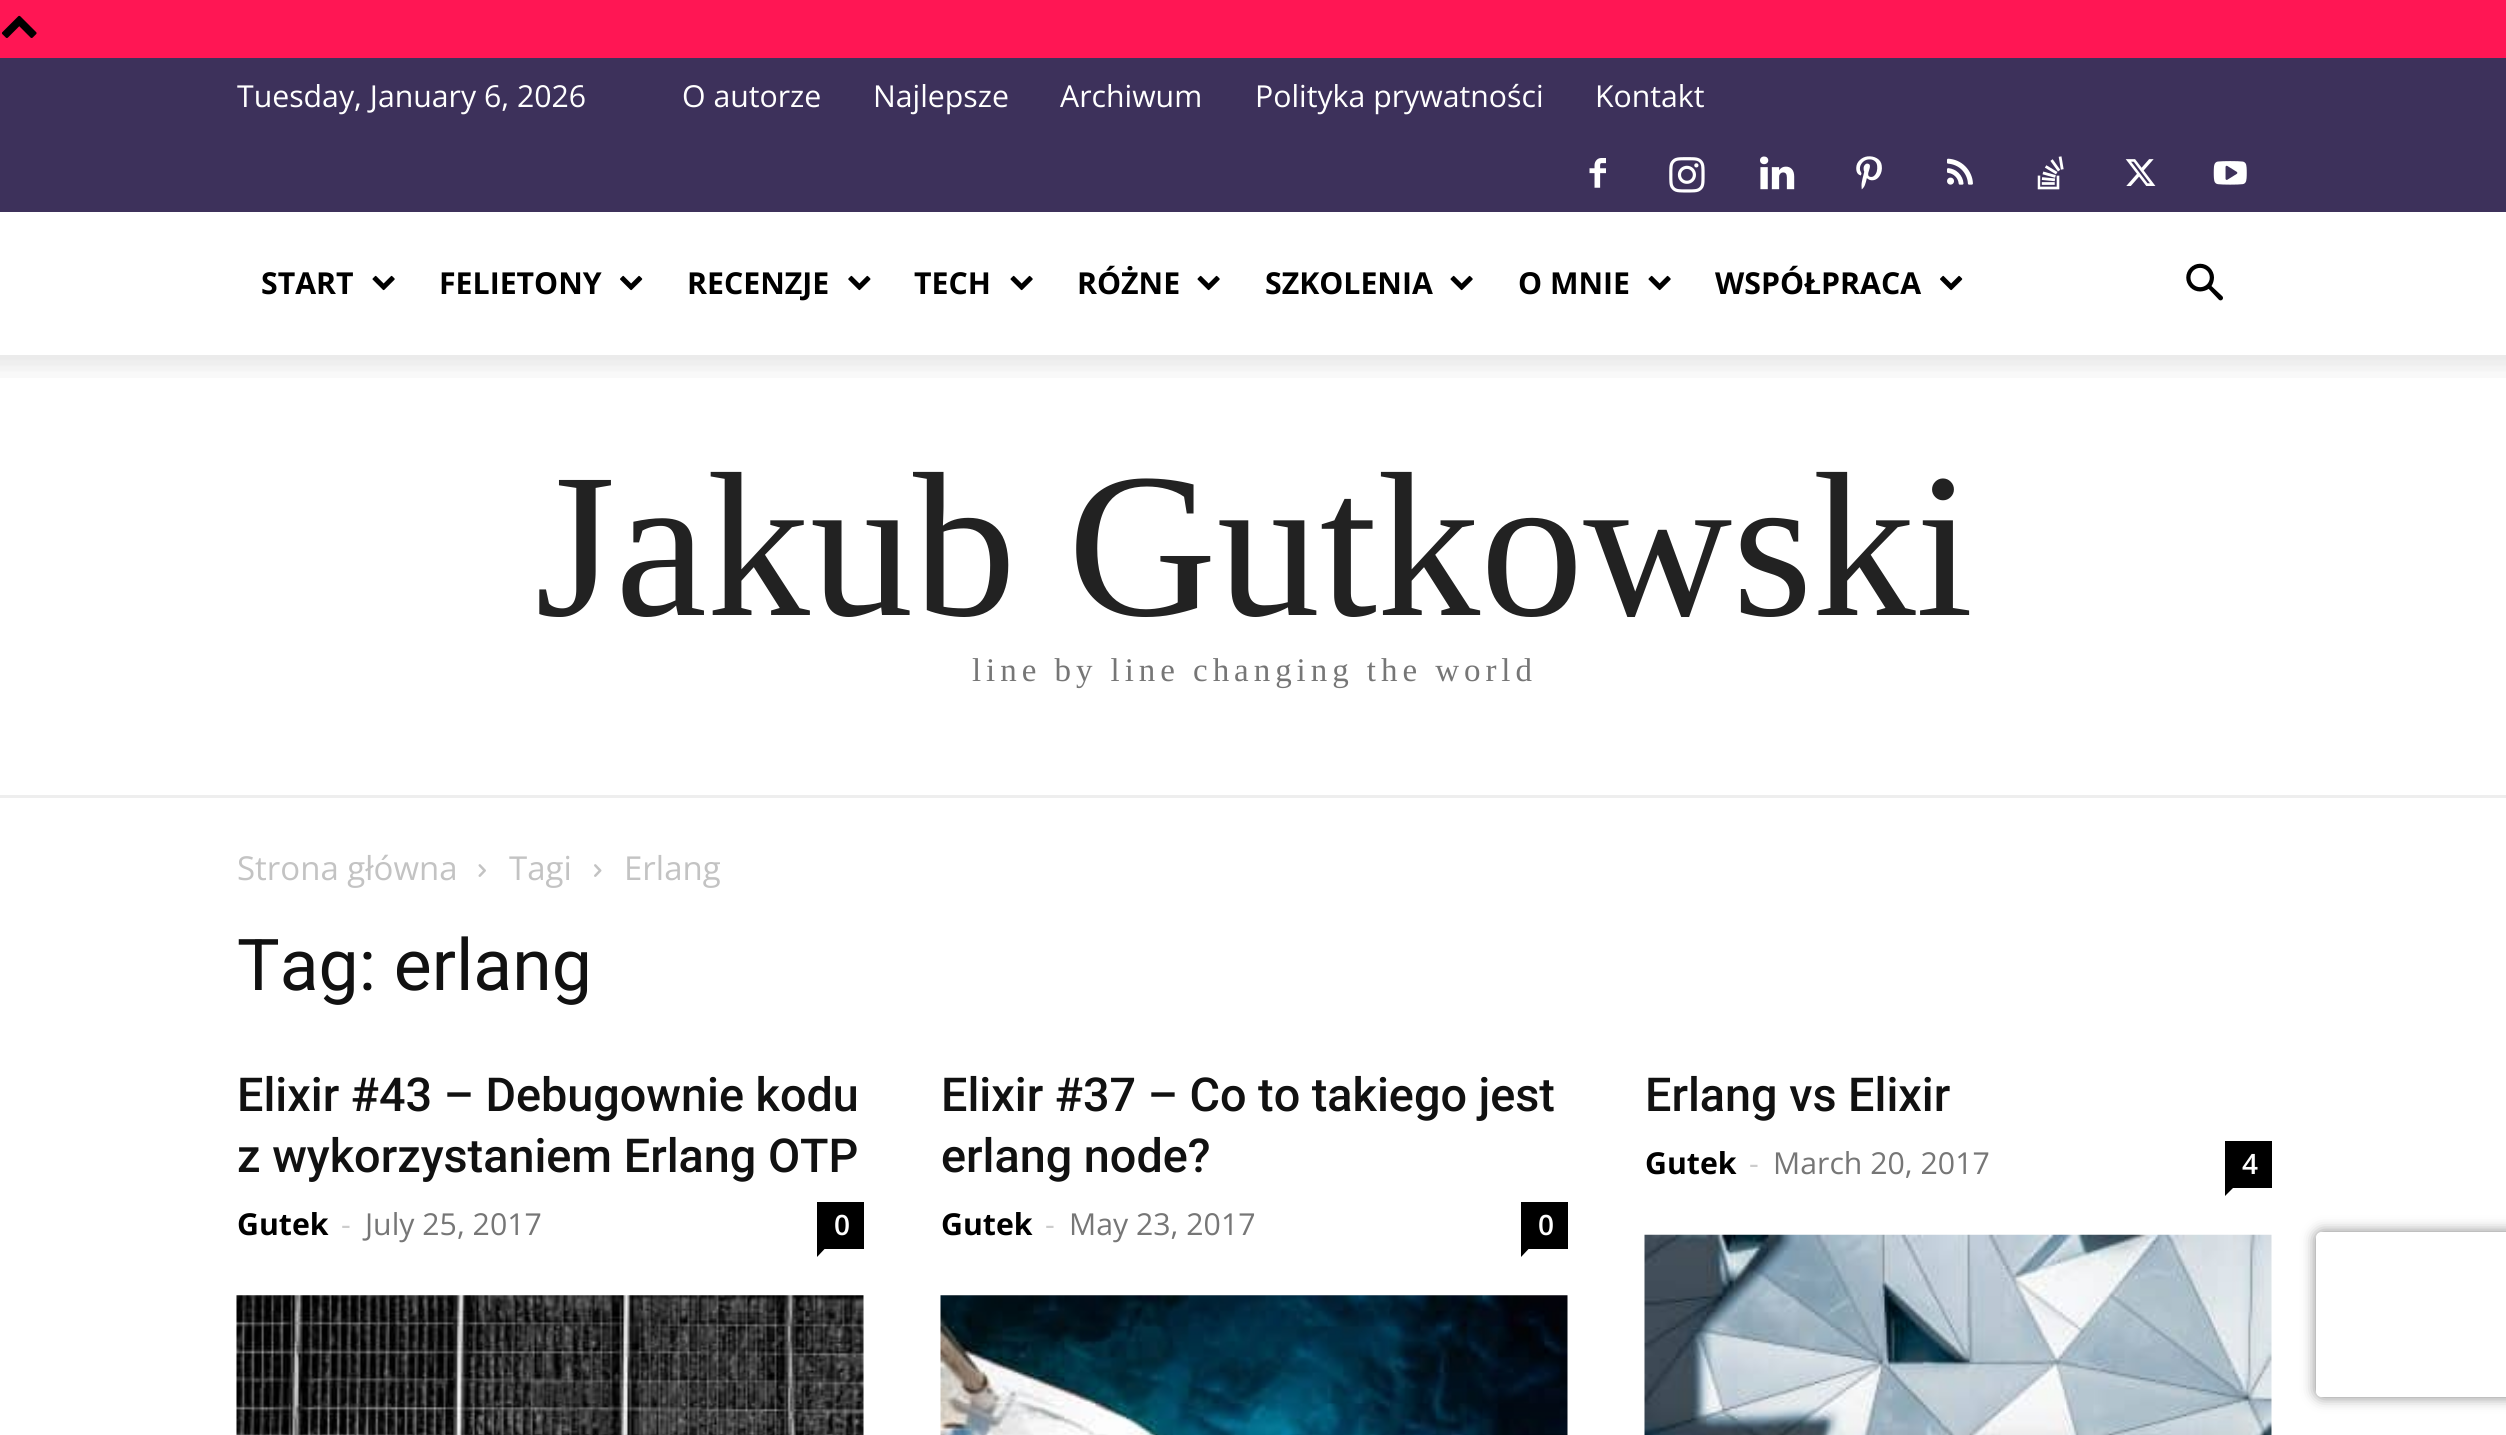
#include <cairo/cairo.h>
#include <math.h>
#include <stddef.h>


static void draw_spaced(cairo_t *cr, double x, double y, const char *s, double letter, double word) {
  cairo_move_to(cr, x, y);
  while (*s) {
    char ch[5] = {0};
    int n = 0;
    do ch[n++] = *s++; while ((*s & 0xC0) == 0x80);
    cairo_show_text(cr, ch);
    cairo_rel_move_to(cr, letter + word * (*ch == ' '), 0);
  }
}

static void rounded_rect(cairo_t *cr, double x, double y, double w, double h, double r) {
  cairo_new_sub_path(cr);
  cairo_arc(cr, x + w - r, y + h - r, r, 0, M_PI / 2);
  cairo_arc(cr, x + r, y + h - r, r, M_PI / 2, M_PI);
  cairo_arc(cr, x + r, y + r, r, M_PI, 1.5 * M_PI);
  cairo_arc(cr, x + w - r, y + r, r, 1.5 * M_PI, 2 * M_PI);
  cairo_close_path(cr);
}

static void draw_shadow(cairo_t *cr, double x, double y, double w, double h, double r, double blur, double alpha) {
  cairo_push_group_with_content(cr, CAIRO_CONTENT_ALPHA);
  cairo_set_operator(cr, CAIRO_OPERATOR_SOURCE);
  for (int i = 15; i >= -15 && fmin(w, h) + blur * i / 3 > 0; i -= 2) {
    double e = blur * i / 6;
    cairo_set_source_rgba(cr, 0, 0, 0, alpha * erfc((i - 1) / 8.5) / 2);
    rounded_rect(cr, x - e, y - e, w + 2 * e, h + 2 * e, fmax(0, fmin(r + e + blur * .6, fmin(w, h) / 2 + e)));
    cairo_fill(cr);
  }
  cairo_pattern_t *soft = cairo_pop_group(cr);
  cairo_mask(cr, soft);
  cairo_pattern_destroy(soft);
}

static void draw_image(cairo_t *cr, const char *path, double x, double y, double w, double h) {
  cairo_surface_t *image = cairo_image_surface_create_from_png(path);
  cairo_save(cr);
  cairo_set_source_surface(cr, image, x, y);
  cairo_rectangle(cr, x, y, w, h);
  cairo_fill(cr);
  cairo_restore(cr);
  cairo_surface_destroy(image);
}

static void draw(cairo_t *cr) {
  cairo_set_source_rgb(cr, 1, 1, 1);
  cairo_paint(cr);
  cairo_set_source_rgb(cr, 1, 22 / 255.0, 84 / 255.0);
  cairo_rectangle(cr, 0, 0, 2506, 58);
  cairo_fill(cr);
  draw_image(cr, "images/1.png", 1, 15, 36, 23);
  cairo_set_source_rgb(cr, 61 / 255.0, 49 / 255.0, 91 / 255.0);
  cairo_rectangle(cr, 0, 58, 2506, 154);
  cairo_fill(cr);
  draw_image(cr, "images/2.png", 1589, 158, 17, 30);
  draw_image(cr, "images/3.png", 1669, 157, 36, 36);
  draw_image(cr, "images/4.png", 1760, 156, 35, 34);
  draw_image(cr, "images/5.png", 1856, 156, 26, 34);
  draw_image(cr, "images/6.png", 1947, 158, 26, 27);
  draw_image(cr, "images/7.png", 2037, 156, 27, 34);
  draw_image(cr, "images/8.png", 2125, 159, 31, 27);
  draw_image(cr, "images/9.png", 2213, 161, 34, 24);
  draw_image(cr, "images/10.png", 372, 275, 23, 16);
  draw_image(cr, "images/11.png", 620, 275, 23, 16);
  draw_image(cr, "images/12.png", 848, 275, 23, 16);
  draw_image(cr, "images/10.png", 1010, 275, 23, 16);
  draw_image(cr, "images/10.png", 1197, 275, 23, 16);
  draw_image(cr, "images/10.png", 1450, 275, 23, 16);
  draw_image(cr, "images/10.png", 1648, 275, 23, 16);
  draw_image(cr, "images/11.png", 1940, 275, 23, 16);
  draw_image(cr, "images/13.png", 2186, 263, 37, 38);
  draw_image(cr, "images/14.png", 0, 355, 2506, 23);
  cairo_set_source_rgb(cr, 238 / 255.0, 238 / 255.0, 238 / 255.0);
  cairo_rectangle(cr, 0, 795, 2506, 3);
  cairo_fill(cr);
  draw_image(cr, "images/15.png", 478, 864, 8, 13);
  draw_image(cr, "images/16.png", 594, 864, 8, 13);
  cairo_set_source_rgb(cr, 0, 0, 0);
  cairo_rectangle(cr, 817, 1202, 47, 47);
  cairo_fill(cr);
  cairo_new_path(cr);
  cairo_move_to(cr, 817, 1248.5);
  cairo_line_to(cr, 825, 1248.5);
  cairo_line_to(cr, 817, 1257);
  cairo_close_path(cr);
  cairo_fill(cr);
  draw_image(cr, "images/17.png", 236, 1295, 628, 140);
  cairo_rectangle(cr, 1521, 1202, 47, 47);
  cairo_fill(cr);
  cairo_new_path(cr);
  cairo_move_to(cr, 1521, 1248.5);
  cairo_line_to(cr, 1529, 1248.5);
  cairo_line_to(cr, 1521, 1257);
  cairo_close_path(cr);
  cairo_fill(cr);
  draw_image(cr, "images/18.png", 940, 1295, 628, 140);
  cairo_rectangle(cr, 2225, 1141, 47, 47);
  cairo_fill(cr);
  cairo_new_path(cr);
  cairo_move_to(cr, 2225, 1188);
  cairo_line_to(cr, 2233, 1188);
  cairo_line_to(cr, 2225, 1196);
  cairo_close_path(cr);
  cairo_fill(cr);
  draw_image(cr, "images/19.png", 1644, 1234, 628, 201);
  cairo_save(cr);
  cairo_set_fill_rule(cr, CAIRO_FILL_RULE_EVEN_ODD);
  cairo_new_path(cr);
  cairo_move_to(cr, 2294, 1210);
  cairo_line_to(cr, 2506, 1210);
  cairo_line_to(cr, 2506, 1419);
  cairo_line_to(cr, 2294, 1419);
  cairo_close_path(cr);
  cairo_move_to(cr, 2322, 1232);
  cairo_line_to(cr, 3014, 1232);
  cairo_curve_to(cr, 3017.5, 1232, 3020, 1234.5, 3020, 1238);
  cairo_line_to(cr, 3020, 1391);
  cairo_curve_to(cr, 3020, 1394.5, 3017.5, 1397, 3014, 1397);
  cairo_line_to(cr, 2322, 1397);
  cairo_curve_to(cr, 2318.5, 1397, 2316, 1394.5, 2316, 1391);
  cairo_line_to(cr, 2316, 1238);
  cairo_curve_to(cr, 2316, 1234.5, 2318.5, 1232, 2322, 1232);
  cairo_close_path(cr);
  cairo_clip(cr);
  cairo_set_source_rgb(cr, 128 / 255.0, 128 / 255.0, 128 / 255.0);
  draw_shadow(cr, 2316, 1232, 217, 165, 6, 7, 1);
  cairo_restore(cr);
  cairo_select_font_face(cr, "Open Sans", CAIRO_FONT_SLANT_NORMAL, CAIRO_FONT_WEIGHT_NORMAL);
  cairo_set_font_size(cr, 30.25);
  cairo_set_source_rgb(cr, 1, 1, 1);
  cairo_move_to(cr, 237, 107);
  cairo_show_text(cr, "Tuesday, January 6, 2026");
  cairo_move_to(cr, 682, 107);
  cairo_show_text(cr, "O autorze");
  cairo_move_to(cr, 873, 107);
  cairo_show_text(cr, "Najlepsze");
  cairo_move_to(cr, 1060, 107);
  cairo_show_text(cr, "Archiwum");
  cairo_move_to(cr, 1255, 107);
  cairo_show_text(cr, "Polityka prywatności");
  cairo_move_to(cr, 1595, 107);
  cairo_show_text(cr, "Kontakt");
  cairo_select_font_face(cr, "Open Sans", CAIRO_FONT_SLANT_NORMAL, CAIRO_FONT_WEIGHT_BOLD);
  cairo_set_source_rgb(cr, 0, 0, 0);
  cairo_move_to(cr, 261, 294);
  cairo_show_text(cr, "START");
  cairo_move_to(cr, 439, 294);
  cairo_show_text(cr, "FELIETONY");
  cairo_move_to(cr, 687, 294);
  cairo_show_text(cr, "RECENZJE");
  cairo_move_to(cr, 914, 294);
  cairo_show_text(cr, "TECH");
  cairo_move_to(cr, 1077, 294);
  cairo_show_text(cr, "RÓŻNE");
  cairo_move_to(cr, 1265, 294);
  cairo_show_text(cr, "SZKOLENIA");
  cairo_move_to(cr, 1518, 294);
  cairo_show_text(cr, "O MNIE");
  cairo_move_to(cr, 1715, 294);
  cairo_show_text(cr, "WSPÓŁPRACA");
  cairo_select_font_face(cr, "Liberation Serif", CAIRO_FONT_SLANT_NORMAL, CAIRO_FONT_WEIGHT_NORMAL);
  cairo_set_font_size(cr, 206.25);
  cairo_set_source_rgb(cr, 34 / 255.0, 34 / 255.0, 34 / 255.0);
  cairo_move_to(cr, 535, 615);
  cairo_show_text(cr, "Jakub Gutkowski");
  cairo_set_font_size(cr, 33);
  cairo_set_source_rgb(cr, 118 / 255.0, 118 / 255.0, 118 / 255.0);
  draw_spaced(cr, 972, 681, "line by line changing the world", 4.95, 0);
  cairo_select_font_face(cr, "Open Sans", CAIRO_FONT_SLANT_NORMAL, CAIRO_FONT_WEIGHT_NORMAL);
  cairo_set_source_rgb(cr, 195 / 255.0, 195 / 255.0, 195 / 255.0);
  cairo_move_to(cr, 237, 880);
  cairo_show_text(cr, "Strona główna");
  cairo_move_to(cr, 509, 880);
  cairo_show_text(cr, "Tagi");
  cairo_move_to(cr, 624, 880);
  cairo_show_text(cr, "Erlang");
  cairo_select_font_face(cr, "Roboto", CAIRO_FONT_SLANT_NORMAL, CAIRO_FONT_WEIGHT_NORMAL);
  cairo_set_font_size(cr, 71.5);
  cairo_set_source_rgb(cr, 17 / 255.0, 17 / 255.0, 17 / 255.0);
  cairo_move_to(cr, 237, 990);
  cairo_show_text(cr, "Tag: erlang");
  cairo_select_font_face(cr, "Roboto Medium", CAIRO_FONT_SLANT_NORMAL, CAIRO_FONT_WEIGHT_NORMAL);
  cairo_set_font_size(cr, 46.75);
  cairo_move_to(cr, 237, 1111);
  cairo_show_text(cr, "Elixir #43 – Debugownie kodu");
  cairo_move_to(cr, 237, 1172);
  cairo_show_text(cr, "z wykorzystaniem Erlang OTP");
  cairo_select_font_face(cr, "Open Sans", CAIRO_FONT_SLANT_NORMAL, CAIRO_FONT_WEIGHT_BOLD);
  cairo_set_font_size(cr, 30.25);
  cairo_set_source_rgb(cr, 0, 0, 0);
  cairo_move_to(cr, 237, 1235);
  cairo_show_text(cr, "Gutek");
  cairo_select_font_face(cr, "Open Sans", CAIRO_FONT_SLANT_NORMAL, CAIRO_FONT_WEIGHT_NORMAL);
  cairo_set_source_rgb(cr, 204 / 255.0, 204 / 255.0, 204 / 255.0);
  cairo_move_to(cr, 341, 1235);
  cairo_show_text(cr, "-");
  cairo_set_source_rgb(cr, 118 / 255.0, 118 / 255.0, 118 / 255.0);
  cairo_move_to(cr, 365, 1235);
  cairo_show_text(cr, "July 25, 2017");
  cairo_select_font_face(cr, "Open Sans SemiBold", CAIRO_FONT_SLANT_NORMAL, CAIRO_FONT_WEIGHT_NORMAL);
  cairo_set_font_size(cr, 28);
  cairo_set_source_rgb(cr, 1, 1, 1);
  cairo_move_to(cr, 834, 1235);
  cairo_show_text(cr, "0");
  cairo_select_font_face(cr, "Roboto Medium", CAIRO_FONT_SLANT_NORMAL, CAIRO_FONT_WEIGHT_NORMAL);
  cairo_set_font_size(cr, 46.75);
  cairo_set_source_rgb(cr, 17 / 255.0, 17 / 255.0, 17 / 255.0);
  cairo_move_to(cr, 941, 1111);
  cairo_show_text(cr, "Elixir #37 – Co to takiego jest");
  cairo_move_to(cr, 941, 1172);
  cairo_show_text(cr, "erlang node?");
  cairo_select_font_face(cr, "Open Sans", CAIRO_FONT_SLANT_NORMAL, CAIRO_FONT_WEIGHT_BOLD);
  cairo_set_font_size(cr, 30.25);
  cairo_set_source_rgb(cr, 0, 0, 0);
  cairo_move_to(cr, 941, 1235);
  cairo_show_text(cr, "Gutek");
  cairo_select_font_face(cr, "Open Sans", CAIRO_FONT_SLANT_NORMAL, CAIRO_FONT_WEIGHT_NORMAL);
  cairo_set_source_rgb(cr, 204 / 255.0, 204 / 255.0, 204 / 255.0);
  cairo_move_to(cr, 1045, 1235);
  cairo_show_text(cr, "-");
  cairo_set_source_rgb(cr, 118 / 255.0, 118 / 255.0, 118 / 255.0);
  cairo_move_to(cr, 1069, 1235);
  cairo_show_text(cr, "May 23, 2017");
  cairo_select_font_face(cr, "Open Sans SemiBold", CAIRO_FONT_SLANT_NORMAL, CAIRO_FONT_WEIGHT_NORMAL);
  cairo_set_font_size(cr, 28);
  cairo_set_source_rgb(cr, 1, 1, 1);
  cairo_move_to(cr, 1538, 1235);
  cairo_show_text(cr, "0");
  cairo_select_font_face(cr, "Roboto Medium", CAIRO_FONT_SLANT_NORMAL, CAIRO_FONT_WEIGHT_NORMAL);
  cairo_set_font_size(cr, 46.75);
  cairo_set_source_rgb(cr, 17 / 255.0, 17 / 255.0, 17 / 255.0);
  cairo_move_to(cr, 1645, 1111);
  cairo_show_text(cr, "Erlang vs Elixir");
  cairo_select_font_face(cr, "Open Sans", CAIRO_FONT_SLANT_NORMAL, CAIRO_FONT_WEIGHT_BOLD);
  cairo_set_font_size(cr, 30.25);
  cairo_set_source_rgb(cr, 0, 0, 0);
  cairo_move_to(cr, 1645, 1174);
  cairo_show_text(cr, "Gutek");
  cairo_select_font_face(cr, "Open Sans", CAIRO_FONT_SLANT_NORMAL, CAIRO_FONT_WEIGHT_NORMAL);
  cairo_set_source_rgb(cr, 204 / 255.0, 204 / 255.0, 204 / 255.0);
  cairo_move_to(cr, 1749, 1174);
  cairo_show_text(cr, "-");
  cairo_set_source_rgb(cr, 118 / 255.0, 118 / 255.0, 118 / 255.0);
  cairo_move_to(cr, 1773, 1174);
  cairo_show_text(cr, "March 20, 2017");
  cairo_select_font_face(cr, "Open Sans SemiBold", CAIRO_FONT_SLANT_NORMAL, CAIRO_FONT_WEIGHT_NORMAL);
  cairo_set_font_size(cr, 28);
  cairo_set_source_rgb(cr, 1, 1, 1);
  cairo_move_to(cr, 2242, 1174);
  cairo_show_text(cr, "4");
}

int main(void) {
  cairo_surface_t *surface = cairo_image_surface_create(CAIRO_FORMAT_RGB24, 2506, 1435);
  cairo_t *cr = cairo_create(surface);
  cairo_font_options_t *options = cairo_font_options_create();
  cairo_font_options_set_hint_metrics(options, CAIRO_HINT_METRICS_OFF);
  cairo_font_options_set_hint_style(options, CAIRO_HINT_STYLE_NONE);
  cairo_set_font_options(cr, options);
  cairo_set_miter_limit(cr, 4);
  draw(cr);
  cairo_surface_write_to_png(surface, "out.png");
  cairo_font_options_destroy(options);
  cairo_destroy(cr);
  cairo_surface_destroy(surface);
  return 0;
}
